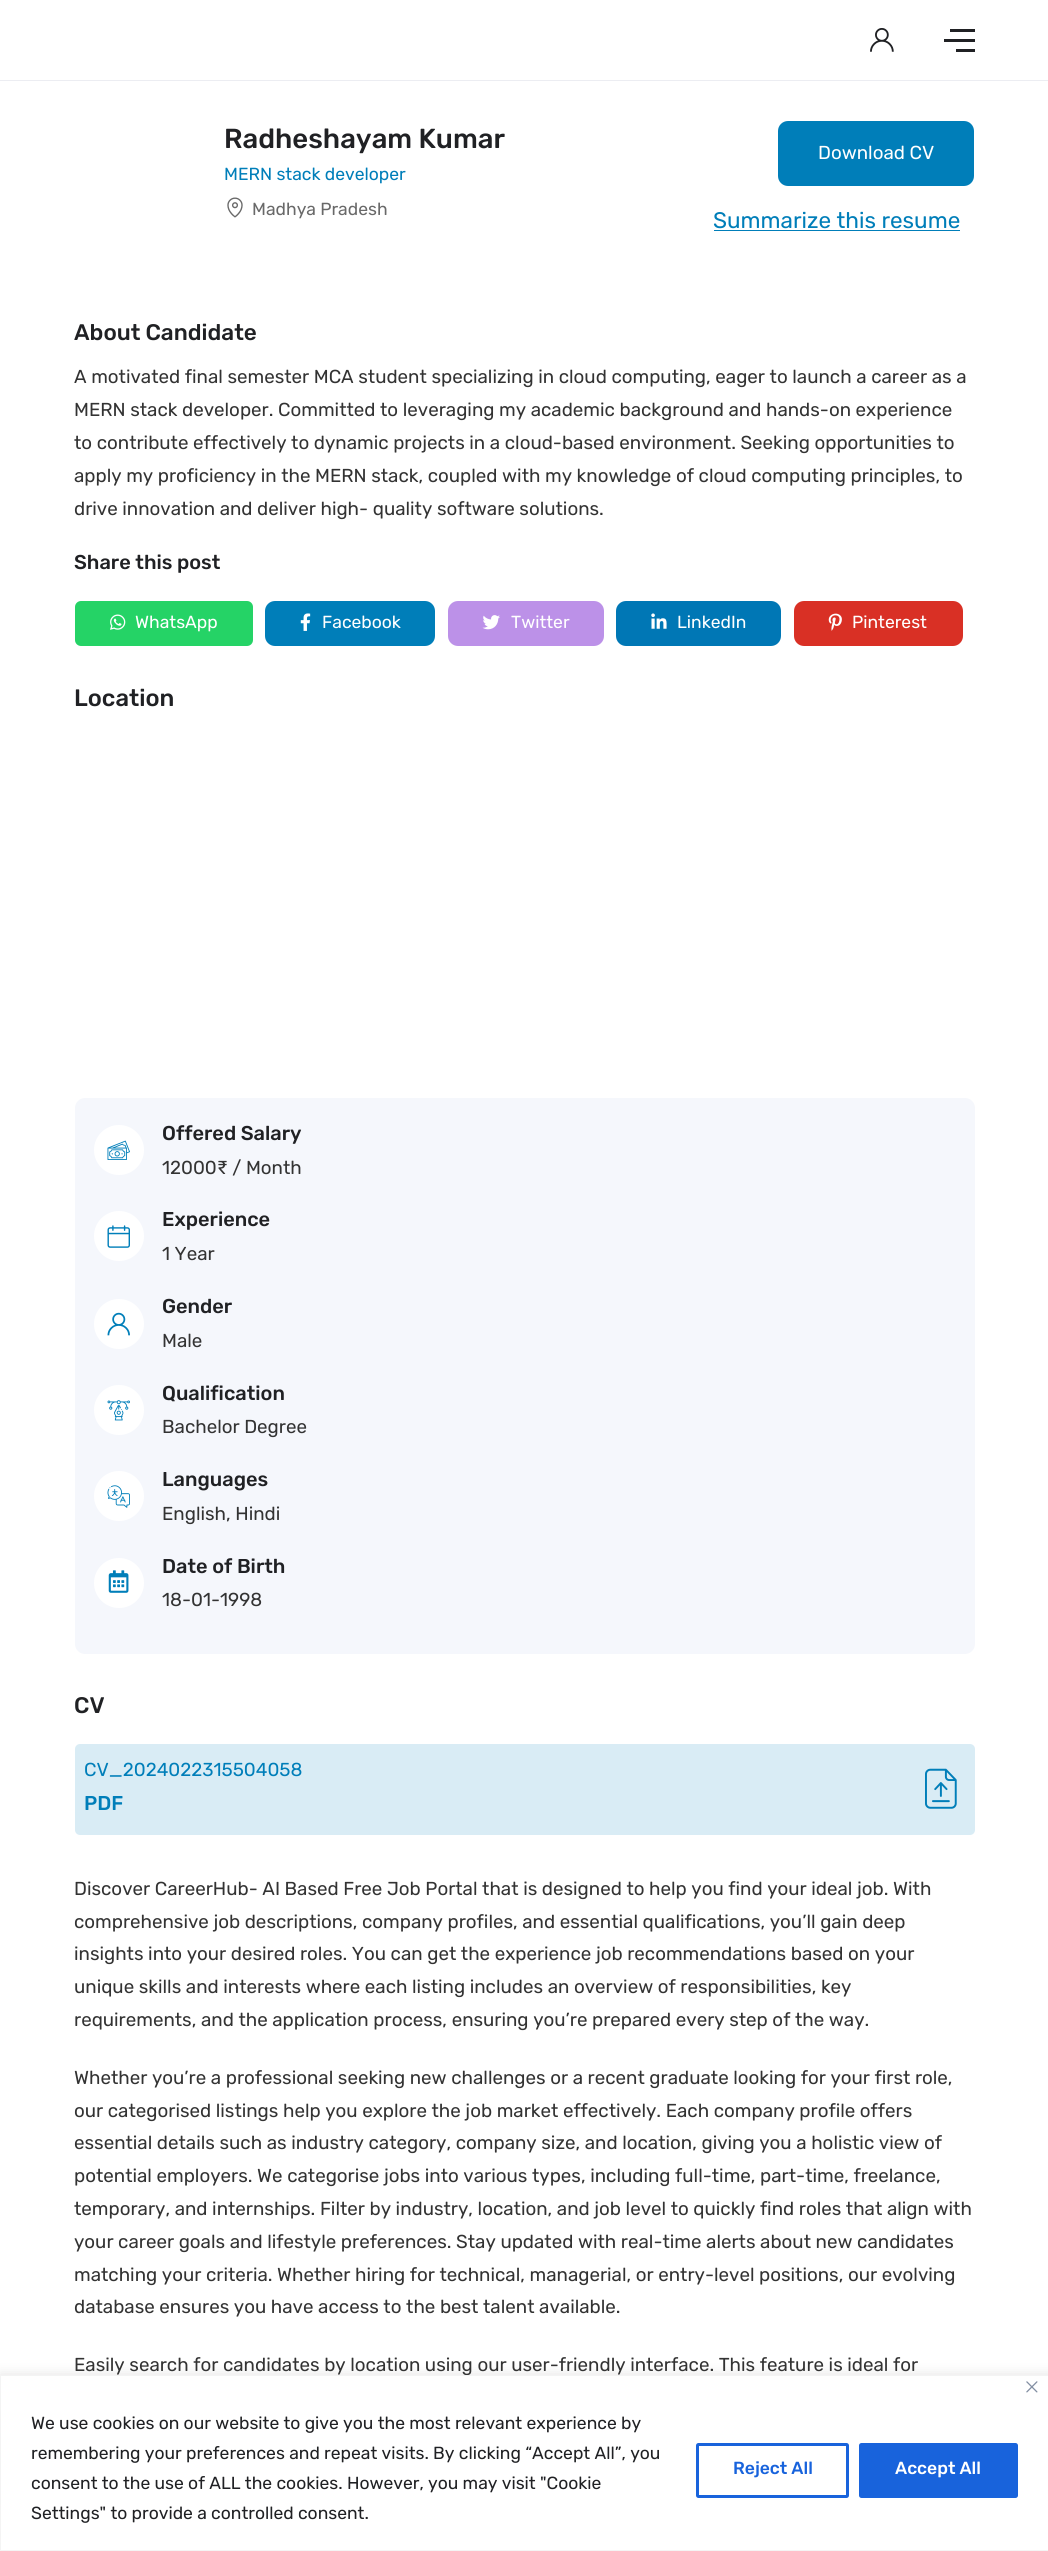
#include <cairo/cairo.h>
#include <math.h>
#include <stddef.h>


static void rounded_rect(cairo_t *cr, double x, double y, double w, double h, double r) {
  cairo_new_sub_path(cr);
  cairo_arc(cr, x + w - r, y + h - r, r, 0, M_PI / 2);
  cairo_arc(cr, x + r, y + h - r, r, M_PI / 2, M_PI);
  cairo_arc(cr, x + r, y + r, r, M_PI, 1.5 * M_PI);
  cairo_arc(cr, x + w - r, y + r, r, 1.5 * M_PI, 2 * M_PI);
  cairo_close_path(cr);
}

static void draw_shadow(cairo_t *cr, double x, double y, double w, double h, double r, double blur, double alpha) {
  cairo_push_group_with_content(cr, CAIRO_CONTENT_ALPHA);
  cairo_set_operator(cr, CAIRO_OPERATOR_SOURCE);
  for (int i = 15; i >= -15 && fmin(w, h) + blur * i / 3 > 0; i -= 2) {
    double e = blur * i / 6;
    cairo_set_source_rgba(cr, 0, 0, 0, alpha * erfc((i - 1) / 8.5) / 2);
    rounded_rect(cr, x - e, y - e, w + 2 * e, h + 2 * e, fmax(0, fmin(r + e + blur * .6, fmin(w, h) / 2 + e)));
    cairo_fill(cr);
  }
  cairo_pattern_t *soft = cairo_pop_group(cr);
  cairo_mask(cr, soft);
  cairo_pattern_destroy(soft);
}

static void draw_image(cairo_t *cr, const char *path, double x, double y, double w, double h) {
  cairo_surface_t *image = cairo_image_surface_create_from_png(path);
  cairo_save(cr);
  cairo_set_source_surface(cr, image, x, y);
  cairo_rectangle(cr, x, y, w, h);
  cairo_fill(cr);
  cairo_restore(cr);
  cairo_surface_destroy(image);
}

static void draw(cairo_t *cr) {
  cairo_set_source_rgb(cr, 1, 1, 1);
  cairo_paint(cr);
  cairo_set_source_rgb(cr, 236 / 255.0, 237 / 255.0, 242 / 255.0);
  cairo_rectangle(cr, 0, 80, 1048, 1);
  cairo_fill(cr);
  draw_image(cr, "images/1.png", 870, 28, 24, 24);
  cairo_set_source_rgb(cr, 32 / 255.0, 33 / 255.0, 36 / 255.0);
  cairo_rectangle(cr, 950, 29, 25, 3);
  cairo_fill(cr);
  cairo_rectangle(cr, 944, 39, 31, 3);
  cairo_fill(cr);
  cairo_rectangle(cr, 956, 49, 19, 3);
  cairo_fill(cr);
  draw_image(cr, "images/2.png", 227, 197, 16, 21);
  cairo_set_source_rgb(cr, 0, 126 / 255.0, 185 / 255.0);
  rounded_rect(cr, 779.5, 122.5, 193, 62, 8.5);
  cairo_fill_preserve(cr);
  cairo_set_line_width(cr, 3);
  cairo_stroke(cr);
  cairo_rectangle(cr, 714, 230, 246, 1);
  cairo_fill(cr);
  cairo_set_source_rgb(cr, 37 / 255.0, 211 / 255.0, 102 / 255.0);
  rounded_rect(cr, 75, 601, 178, 45, 6);
  cairo_fill(cr);
  draw_image(cr, "images/3.png", 110, 614, 16, 16);
  cairo_set_source_rgb(cr, 0, 126 / 255.0, 185 / 255.0);
  rounded_rect(cr, 265, 601, 170, 45, 10);
  cairo_fill(cr);
  draw_image(cr, "images/4.png", 300, 613, 11, 18);
  cairo_set_source_rgb(cr, 188 / 255.0, 145 / 255.0, 232 / 255.0);
  rounded_rect(cr, 448, 601, 156, 45, 10);
  cairo_fill(cr);
  draw_image(cr, "images/5.png", 482, 615, 18, 15);
  cairo_set_source_rgb(cr, 0, 119 / 255.0, 181 / 255.0);
  rounded_rect(cr, 616, 601, 165, 45, 10);
  cairo_fill(cr);
  draw_image(cr, "images/6.png", 651, 613, 16, 16);
  cairo_set_source_rgb(cr, 217 / 255.0, 48 / 255.0, 37 / 255.0);
  rounded_rect(cr, 794, 601, 169, 45, 10);
  cairo_fill(cr);
  draw_image(cr, "images/7.png", 828, 613, 14, 18);
  cairo_set_source_rgb(cr, 245 / 255.0, 247 / 255.0, 252 / 255.0);
  rounded_rect(cr, 75, 1098, 900, 556, 10);
  cairo_fill(cr);
  cairo_set_source_rgb(cr, 1, 1, 1);
  cairo_arc(cr, 119, 1150, 25, 0, 2 * M_PI);
  cairo_fill(cr);
  draw_image(cr, "images/8.png", 107, 1140, 23, 20);
  cairo_arc(cr, 119, 1236, 25, 0, 2 * M_PI);
  cairo_fill(cr);
  draw_image(cr, "images/9.png", 107, 1225, 23, 23);
  cairo_arc(cr, 119, 1324, 25, 0, 2 * M_PI);
  cairo_fill(cr);
  draw_image(cr, "images/10.png", 107, 1312, 23, 24);
  cairo_arc(cr, 119, 1410, 25, 0, 2 * M_PI);
  cairo_fill(cr);
  draw_image(cr, "images/11.png", 107, 1400, 23, 21);
  cairo_arc(cr, 119, 1496, 25, 0, 2 * M_PI);
  cairo_fill(cr);
  draw_image(cr, "images/12.png", 107, 1485, 23, 23);
  cairo_arc(cr, 119, 1583, 25, 0, 2 * M_PI);
  cairo_fill(cr);
  draw_image(cr, "images/13.png", 108, 1570, 21, 23);
  cairo_set_source_rgb(cr, 217 / 255.0, 236 / 255.0, 245 / 255.0);
  rounded_rect(cr, 75, 1744, 900, 91, 5);
  cairo_fill(cr);
  draw_image(cr, "images/14.png", 925, 1768, 32, 41);
  cairo_set_source_rgb(cr, 172 / 255.0, 171 / 255.0, 171 / 255.0);
  draw_shadow(cr, 0, 2374, 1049, 176, 0, 6, 0.3);
  cairo_select_font_face(cr, "Rubik Medium", CAIRO_FONT_SLANT_NORMAL, CAIRO_FONT_WEIGHT_NORMAL);
  cairo_set_font_size(cr, 27.5);
  cairo_set_source_rgb(cr, 32 / 255.0, 33 / 255.0, 36 / 255.0);
  cairo_move_to(cr, 224, 148);
  cairo_show_text(cr, "Radheshayam Kumar");
  cairo_select_font_face(cr, "Rubik", CAIRO_FONT_SLANT_NORMAL, CAIRO_FONT_WEIGHT_NORMAL);
  cairo_set_font_size(cr, 17.5);
  cairo_set_source_rgb(cr, 0, 126 / 255.0, 185 / 255.0);
  cairo_move_to(cr, 224, 180);
  cairo_show_text(cr, "MERN stack developer");
  cairo_set_source_rgb(cr, 105 / 255.0, 105 / 255.0, 105 / 255.0);
  cairo_move_to(cr, 252, 215);
  cairo_show_text(cr, "Madhya Pradesh");
  cairo_set_font_size(cr, 18.75);
  cairo_set_source_rgb(cr, 1, 1, 1);
  cairo_move_to(cr, 818, 159);
  cairo_show_text(cr, "Download CV");
  cairo_set_font_size(cr, 22.5);
  cairo_set_source_rgb(cr, 0, 126 / 255.0, 185 / 255.0);
  cairo_move_to(cr, 713, 228);
  cairo_show_text(cr, "Summarize this resume");
  cairo_select_font_face(cr, "Rubik Medium", CAIRO_FONT_SLANT_NORMAL, CAIRO_FONT_WEIGHT_NORMAL);
  cairo_set_source_rgb(cr, 32 / 255.0, 33 / 255.0, 36 / 255.0);
  cairo_move_to(cr, 74, 340);
  cairo_show_text(cr, "About Candidate");
  cairo_select_font_face(cr, "Rubik", CAIRO_FONT_SLANT_NORMAL, CAIRO_FONT_WEIGHT_NORMAL);
  cairo_set_font_size(cr, 18.75);
  cairo_set_source_rgb(cr, 51 / 255.0, 51 / 255.0, 51 / 255.0);
  cairo_move_to(cr, 74, 383);
  cairo_show_text(cr, "A motivated final semester MCA student specializing in cloud computing, eager to launch a career as a");
  cairo_move_to(cr, 74, 416);
  cairo_show_text(cr, "MERN stack developer. Committed to leveraging my academic background and hands-on experience");
  cairo_move_to(cr, 74, 449);
  cairo_show_text(cr, "to contribute effectively to dynamic projects in a cloud-based environment. Seeking opportunities to");
  cairo_move_to(cr, 74, 482);
  cairo_show_text(cr, "apply my proficiency in the MERN stack, coupled with my knowledge of cloud computing principles, to");
  cairo_move_to(cr, 74, 515);
  cairo_show_text(cr, "drive innovation and deliver high- quality software solutions.");
  cairo_select_font_face(cr, "Rubik Medium", CAIRO_FONT_SLANT_NORMAL, CAIRO_FONT_WEIGHT_NORMAL);
  cairo_set_font_size(cr, 20);
  cairo_set_source_rgb(cr, 32 / 255.0, 33 / 255.0, 36 / 255.0);
  cairo_move_to(cr, 74, 569);
  cairo_show_text(cr, "Share this post");
  cairo_select_font_face(cr, "Rubik", CAIRO_FONT_SLANT_NORMAL, CAIRO_FONT_WEIGHT_NORMAL);
  cairo_set_font_size(cr, 17.5);
  cairo_set_source_rgb(cr, 1, 1, 1);
  cairo_move_to(cr, 135, 628);
  cairo_show_text(cr, "WhatsApp");
  cairo_move_to(cr, 322, 628);
  cairo_show_text(cr, "Facebook");
  cairo_move_to(cr, 511, 628);
  cairo_show_text(cr, "Twitter");
  cairo_move_to(cr, 677, 628);
  cairo_show_text(cr, "LinkedIn");
  cairo_move_to(cr, 852, 628);
  cairo_show_text(cr, "Pinterest");
  cairo_select_font_face(cr, "Rubik Medium", CAIRO_FONT_SLANT_NORMAL, CAIRO_FONT_WEIGHT_NORMAL);
  cairo_set_font_size(cr, 23.75);
  cairo_set_source_rgb(cr, 32 / 255.0, 33 / 255.0, 36 / 255.0);
  cairo_move_to(cr, 74, 706);
  cairo_show_text(cr, "Location");
  cairo_set_font_size(cr, 20);
  cairo_move_to(cr, 162, 1140);
  cairo_show_text(cr, "Offered Salary");
  cairo_select_font_face(cr, "Rubik", CAIRO_FONT_SLANT_NORMAL, CAIRO_FONT_WEIGHT_NORMAL);
  cairo_set_font_size(cr, 18.75);
  cairo_set_source_rgb(cr, 51 / 255.0, 51 / 255.0, 51 / 255.0);
  cairo_move_to(cr, 162, 1174);
  cairo_show_text(cr, "12000₹ / Month");
  cairo_select_font_face(cr, "Rubik Medium", CAIRO_FONT_SLANT_NORMAL, CAIRO_FONT_WEIGHT_NORMAL);
  cairo_set_font_size(cr, 20);
  cairo_set_source_rgb(cr, 32 / 255.0, 33 / 255.0, 36 / 255.0);
  cairo_move_to(cr, 162, 1226);
  cairo_show_text(cr, "Experience");
  cairo_select_font_face(cr, "Rubik", CAIRO_FONT_SLANT_NORMAL, CAIRO_FONT_WEIGHT_NORMAL);
  cairo_set_font_size(cr, 18.75);
  cairo_set_source_rgb(cr, 51 / 255.0, 51 / 255.0, 51 / 255.0);
  cairo_move_to(cr, 162, 1260);
  cairo_show_text(cr, "1 Year");
  cairo_select_font_face(cr, "Rubik Medium", CAIRO_FONT_SLANT_NORMAL, CAIRO_FONT_WEIGHT_NORMAL);
  cairo_set_font_size(cr, 20);
  cairo_set_source_rgb(cr, 32 / 255.0, 33 / 255.0, 36 / 255.0);
  cairo_move_to(cr, 162, 1313);
  cairo_show_text(cr, "Gender");
  cairo_select_font_face(cr, "Rubik", CAIRO_FONT_SLANT_NORMAL, CAIRO_FONT_WEIGHT_NORMAL);
  cairo_set_font_size(cr, 18.75);
  cairo_set_source_rgb(cr, 51 / 255.0, 51 / 255.0, 51 / 255.0);
  cairo_move_to(cr, 162, 1347);
  cairo_show_text(cr, "Male");
  cairo_select_font_face(cr, "Rubik Medium", CAIRO_FONT_SLANT_NORMAL, CAIRO_FONT_WEIGHT_NORMAL);
  cairo_set_font_size(cr, 20);
  cairo_set_source_rgb(cr, 32 / 255.0, 33 / 255.0, 36 / 255.0);
  cairo_move_to(cr, 162, 1400);
  cairo_show_text(cr, "Qualification");
  cairo_select_font_face(cr, "Rubik", CAIRO_FONT_SLANT_NORMAL, CAIRO_FONT_WEIGHT_NORMAL);
  cairo_set_font_size(cr, 18.75);
  cairo_set_source_rgb(cr, 51 / 255.0, 51 / 255.0, 51 / 255.0);
  cairo_move_to(cr, 162, 1433);
  cairo_show_text(cr, "Bachelor Degree");
  cairo_select_font_face(cr, "Rubik Medium", CAIRO_FONT_SLANT_NORMAL, CAIRO_FONT_WEIGHT_NORMAL);
  cairo_set_font_size(cr, 20);
  cairo_set_source_rgb(cr, 32 / 255.0, 33 / 255.0, 36 / 255.0);
  cairo_move_to(cr, 162, 1486);
  cairo_show_text(cr, "Languages");
  cairo_select_font_face(cr, "Rubik", CAIRO_FONT_SLANT_NORMAL, CAIRO_FONT_WEIGHT_NORMAL);
  cairo_set_font_size(cr, 18.75);
  cairo_set_source_rgb(cr, 51 / 255.0, 51 / 255.0, 51 / 255.0);
  cairo_move_to(cr, 162, 1520);
  cairo_show_text(cr, "English, Hindi");
  cairo_select_font_face(cr, "Rubik Medium", CAIRO_FONT_SLANT_NORMAL, CAIRO_FONT_WEIGHT_NORMAL);
  cairo_set_font_size(cr, 20);
  cairo_set_source_rgb(cr, 32 / 255.0, 33 / 255.0, 36 / 255.0);
  cairo_move_to(cr, 162, 1573);
  cairo_show_text(cr, "Date of Birth");
  cairo_select_font_face(cr, "Rubik", CAIRO_FONT_SLANT_NORMAL, CAIRO_FONT_WEIGHT_NORMAL);
  cairo_set_font_size(cr, 18.75);
  cairo_set_source_rgb(cr, 51 / 255.0, 51 / 255.0, 51 / 255.0);
  cairo_move_to(cr, 162, 1606);
  cairo_show_text(cr, "18-01-1998");
  cairo_select_font_face(cr, "Rubik Medium", CAIRO_FONT_SLANT_NORMAL, CAIRO_FONT_WEIGHT_NORMAL);
  cairo_set_font_size(cr, 22.5);
  cairo_set_source_rgb(cr, 32 / 255.0, 33 / 255.0, 36 / 255.0);
  cairo_move_to(cr, 74, 1713);
  cairo_show_text(cr, "CV");
  cairo_select_font_face(cr, "Rubik", CAIRO_FONT_SLANT_NORMAL, CAIRO_FONT_WEIGHT_NORMAL);
  cairo_set_font_size(cr, 18.75);
  cairo_set_source_rgb(cr, 0, 126 / 255.0, 185 / 255.0);
  cairo_move_to(cr, 84, 1776);
  cairo_show_text(cr, "CV_2024022315504058");
  cairo_select_font_face(cr, "Rubik Medium", CAIRO_FONT_SLANT_NORMAL, CAIRO_FONT_WEIGHT_NORMAL);
  cairo_set_font_size(cr, 20);
  cairo_move_to(cr, 84, 1810);
  cairo_show_text(cr, "PDF");
  cairo_select_font_face(cr, "Rubik", CAIRO_FONT_SLANT_NORMAL, CAIRO_FONT_WEIGHT_NORMAL);
  cairo_set_font_size(cr, 18.75);
  cairo_set_source_rgb(cr, 51 / 255.0, 51 / 255.0, 51 / 255.0);
  cairo_move_to(cr, 74, 1895);
  cairo_show_text(cr, "Discover CareerHub- AI Based Free Job Portal that is designed to help you find your ideal job. With");
  cairo_move_to(cr, 74, 1928);
  cairo_show_text(cr, "comprehensive job descriptions, company profiles, and essential qualifications, you’ll gain deep");
  cairo_move_to(cr, 74, 1960);
  cairo_show_text(cr, "insights into your desired roles. You can get the experience job recommendations based on your");
  cairo_move_to(cr, 74, 1993);
  cairo_show_text(cr, "unique skills and interests where each listing includes an overview of responsibilities, key");
  cairo_move_to(cr, 74, 2026);
  cairo_show_text(cr, "requirements, and the application process, ensuring you’re prepared every step of the way.");
  cairo_move_to(cr, 74, 2084);
  cairo_show_text(cr, "Whether you’re a professional seeking new challenges or a recent graduate looking for your first role,");
  cairo_move_to(cr, 74, 2117);
  cairo_show_text(cr, "our categorised listings help you explore the job market effectively. Each company profile offers");
  cairo_move_to(cr, 74, 2149);
  cairo_show_text(cr, "essential details such as industry category, company size, and location, giving you a holistic view of");
  cairo_move_to(cr, 74, 2182);
  cairo_show_text(cr, "potential employers. We categorise jobs into various types, including full-time, part-time, freelance,");
  cairo_move_to(cr, 74, 2215);
  cairo_show_text(cr, "temporary, and internships. Filter by industry, location, and job level to quickly find roles that align with");
  cairo_move_to(cr, 74, 2248);
  cairo_show_text(cr, "your career goals and lifestyle preferences. Stay updated with real-time alerts about new candidates");
  cairo_move_to(cr, 74, 2281);
  cairo_show_text(cr, "matching your criteria. Whether hiring for technical, managerial, or entry-level positions, our evolving");
  cairo_move_to(cr, 74, 2313);
  cairo_show_text(cr, "database ensures you have access to the best talent available.");
  cairo_move_to(cr, 74, 2371);
  cairo_show_text(cr, "Easily search for candidates by location using our user-friendly interface. This feature is ideal for");
  cairo_set_source_rgb(cr, 1, 1, 1);
  cairo_rectangle(cr, 0.5, 2375.5, 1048, 175);
  cairo_fill_preserve(cr);
  cairo_set_source_rgb(cr, 244 / 255.0, 244 / 255.0, 244 / 255.0);
  cairo_set_line_width(cr, 1);
  cairo_stroke(cr);
  draw_image(cr, "images/15.png", 1026, 2381, 12, 12);
  cairo_set_font_size(cr, 17.5);
  cairo_set_source_rgb(cr, 32 / 255.0, 33 / 255.0, 36 / 255.0);
  cairo_move_to(cr, 31, 2429);
  cairo_show_text(cr, "We use cookies on our website to give you the most relevant experience by");
  cairo_move_to(cr, 31, 2459);
  cairo_show_text(cr, "remembering your preferences and repeat visits. By clicking “Accept All”, you");
  cairo_move_to(cr, 31, 2489);
  cairo_show_text(cr, "consent to the use of ALL the cookies. However, you may visit \"Cookie");
  cairo_move_to(cr, 31, 2519);
  cairo_show_text(cr, "Settings\" to provide a controlled consent.");
  rounded_rect(cr, 697.5, 2444.5, 150, 52, 1);
  cairo_set_source_rgb(cr, 24 / 255.0, 99 / 255.0, 220 / 255.0);
  cairo_set_line_width(cr, 3);
  cairo_stroke(cr);
  cairo_select_font_face(cr, "Rubik Medium", CAIRO_FONT_SLANT_NORMAL, CAIRO_FONT_WEIGHT_NORMAL);
  cairo_move_to(cr, 733, 2474);
  cairo_show_text(cr, "Reject All");
  rounded_rect(cr, 860.5, 2444.5, 156, 52, 1);
  cairo_fill_preserve(cr);
  cairo_stroke(cr);
  cairo_set_source_rgb(cr, 1, 1, 1);
  cairo_move_to(cr, 895, 2474);
  cairo_show_text(cr, "Accept All");
}

int main(void) {
  cairo_surface_t *surface = cairo_image_surface_create(CAIRO_FORMAT_RGB24, 1048, 2551);
  cairo_t *cr = cairo_create(surface);
  cairo_font_options_t *options = cairo_font_options_create();
  cairo_font_options_set_hint_metrics(options, CAIRO_HINT_METRICS_OFF);
  cairo_font_options_set_hint_style(options, CAIRO_HINT_STYLE_NONE);
  cairo_set_font_options(cr, options);
  cairo_set_miter_limit(cr, 4);
  draw(cr);
  cairo_surface_write_to_png(surface, "out.png");
  cairo_font_options_destroy(options);
  cairo_destroy(cr);
  cairo_surface_destroy(surface);
  return 0;
}
